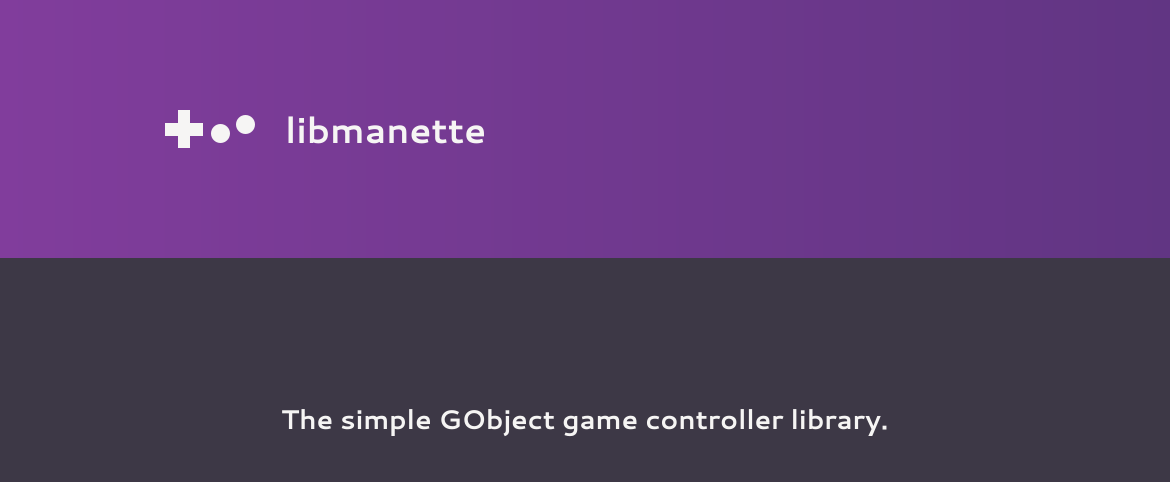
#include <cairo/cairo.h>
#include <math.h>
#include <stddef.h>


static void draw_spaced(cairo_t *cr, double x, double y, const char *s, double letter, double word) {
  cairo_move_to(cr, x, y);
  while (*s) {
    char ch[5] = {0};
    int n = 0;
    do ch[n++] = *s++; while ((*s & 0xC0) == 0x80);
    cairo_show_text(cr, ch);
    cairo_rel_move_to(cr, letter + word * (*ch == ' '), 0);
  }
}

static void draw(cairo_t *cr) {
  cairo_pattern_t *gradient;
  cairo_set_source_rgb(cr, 1, 1, 1);
  cairo_paint(cr);
  gradient = cairo_pattern_create_linear(0, 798, 1170, 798);
  cairo_pattern_add_color_stop_rgba(gradient, 0, 129 / 255.0, 61 / 255.0, 156 / 255.0, 1);
  cairo_pattern_add_color_stop_rgba(gradient, 1, 97 / 255.0, 53 / 255.0, 131 / 255.0, 1);
  cairo_set_source(cr, gradient);
  cairo_pattern_destroy(gradient);
  cairo_rectangle(cr, 0, 0, 1170, 258);
  cairo_fill(cr);
  cairo_set_source_rgb(cr, 246 / 255.0, 245 / 255.0, 244 / 255.0);
  cairo_rectangle(cr, 178, 110, 12, 38);
  cairo_fill(cr);
  cairo_rectangle(cr, 165, 123, 38, 13);
  cairo_fill(cr);
  cairo_arc(cr, 220.5, 133.5, 9.5, 0, 2 * M_PI);
  cairo_fill(cr);
  cairo_arc(cr, 245.5, 124.5, 9.5, 0, 2 * M_PI);
  cairo_fill(cr);
  cairo_set_source_rgb(cr, 61 / 255.0, 56 / 255.0, 70 / 255.0);
  cairo_rectangle(cr, 0, 258, 1170, 224);
  cairo_fill(cr);
  cairo_select_font_face(cr, "Cantarell", CAIRO_FONT_SLANT_NORMAL, CAIRO_FONT_WEIGHT_BOLD);
  cairo_set_font_size(cr, 36);
  cairo_set_source_rgb(cr, 246 / 255.0, 245 / 255.0, 244 / 255.0);
  draw_spaced(cr, 285, 143, "libmanette", -0.2, 0);
  cairo_set_font_size(cr, 27);
  draw_spaced(cr, 281, 429, "The simple GObject game controller library.", -0.2, 0);
}

int main(void) {
  cairo_surface_t *surface = cairo_image_surface_create(CAIRO_FORMAT_RGB24, 1170, 482);
  cairo_t *cr = cairo_create(surface);
  cairo_font_options_t *options = cairo_font_options_create();
  cairo_font_options_set_hint_metrics(options, CAIRO_HINT_METRICS_OFF);
  cairo_font_options_set_hint_style(options, CAIRO_HINT_STYLE_NONE);
  cairo_set_font_options(cr, options);
  cairo_set_miter_limit(cr, 4);
  draw(cr);
  cairo_surface_write_to_png(surface, "out.png");
  cairo_font_options_destroy(options);
  cairo_destroy(cr);
  cairo_surface_destroy(surface);
  return 0;
}
